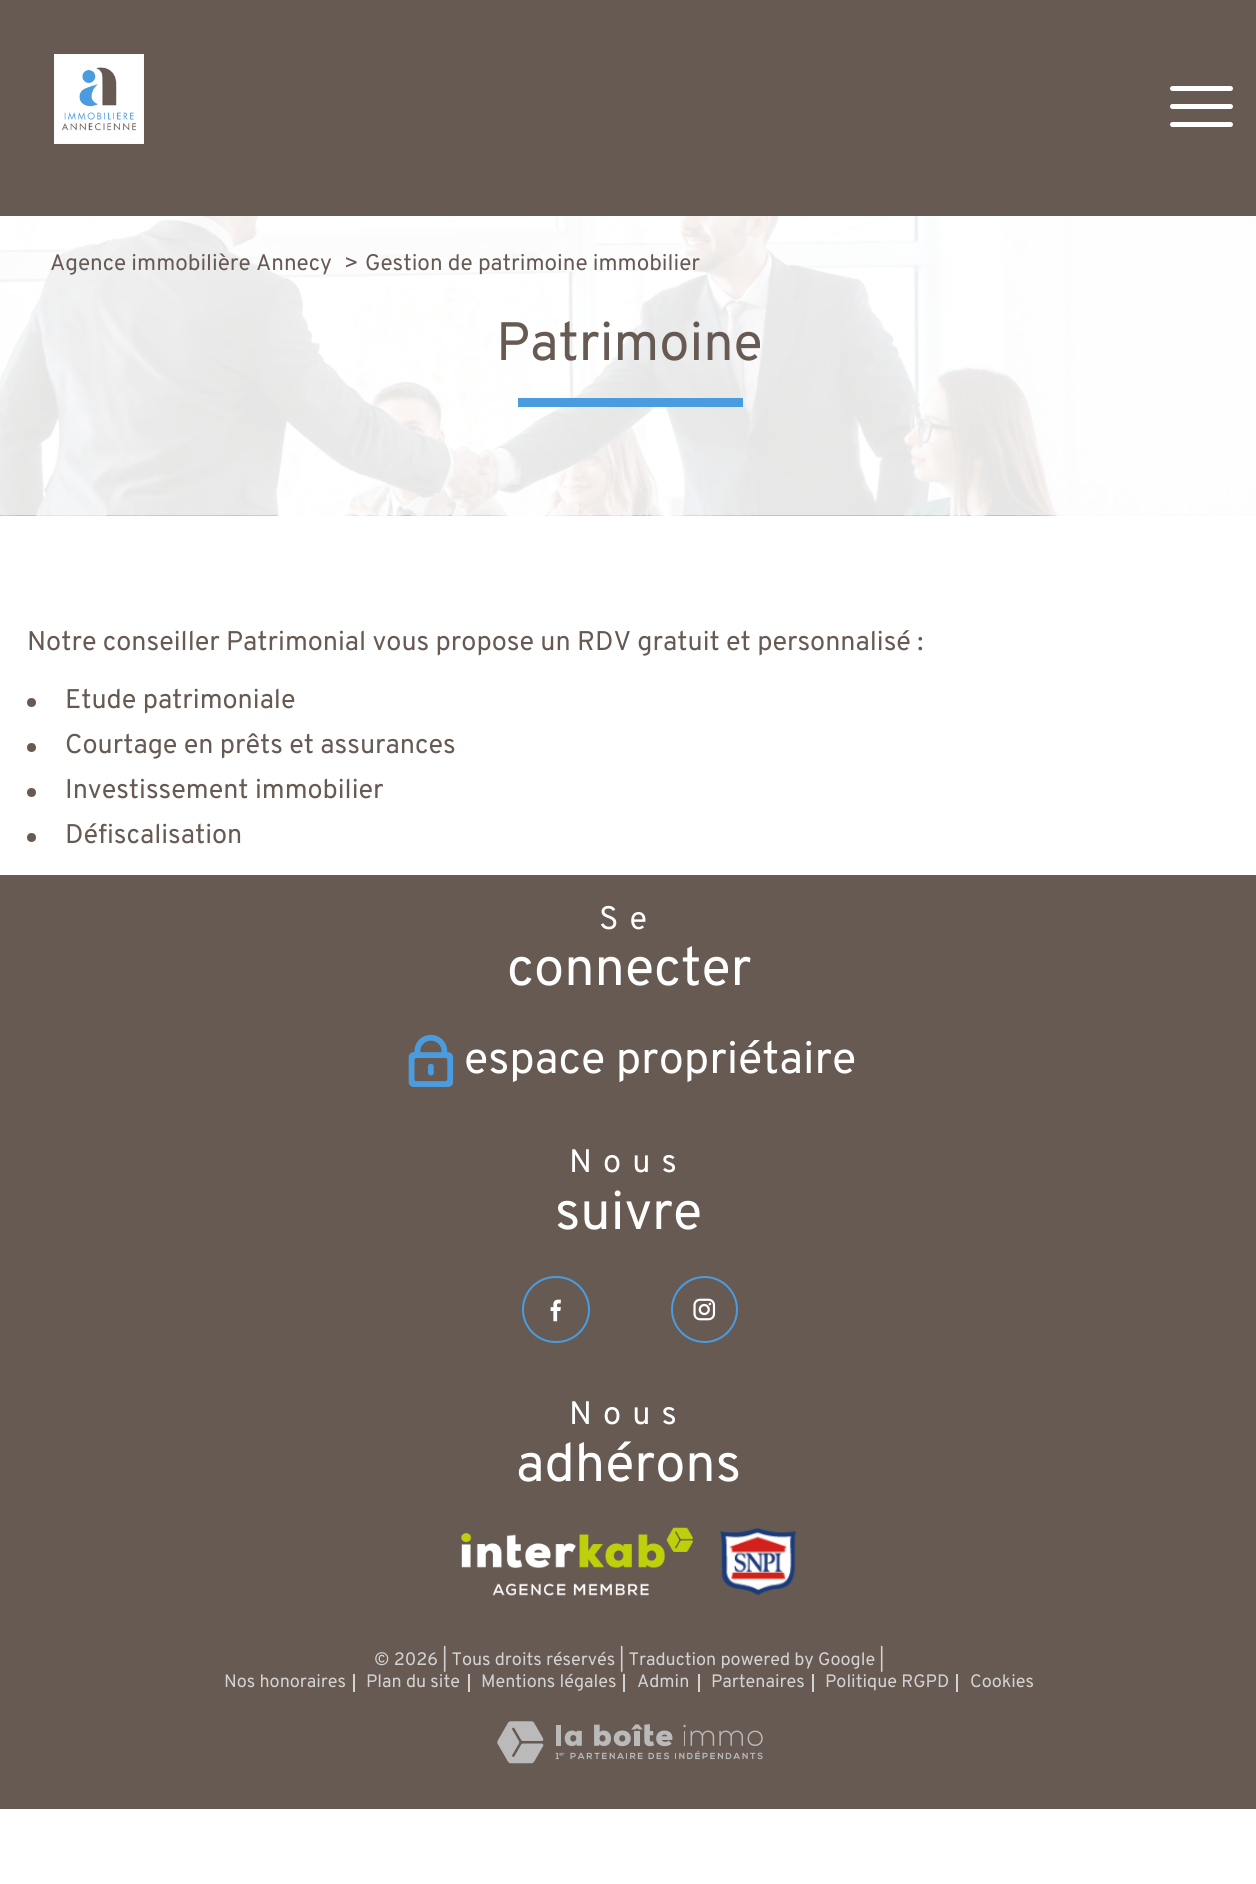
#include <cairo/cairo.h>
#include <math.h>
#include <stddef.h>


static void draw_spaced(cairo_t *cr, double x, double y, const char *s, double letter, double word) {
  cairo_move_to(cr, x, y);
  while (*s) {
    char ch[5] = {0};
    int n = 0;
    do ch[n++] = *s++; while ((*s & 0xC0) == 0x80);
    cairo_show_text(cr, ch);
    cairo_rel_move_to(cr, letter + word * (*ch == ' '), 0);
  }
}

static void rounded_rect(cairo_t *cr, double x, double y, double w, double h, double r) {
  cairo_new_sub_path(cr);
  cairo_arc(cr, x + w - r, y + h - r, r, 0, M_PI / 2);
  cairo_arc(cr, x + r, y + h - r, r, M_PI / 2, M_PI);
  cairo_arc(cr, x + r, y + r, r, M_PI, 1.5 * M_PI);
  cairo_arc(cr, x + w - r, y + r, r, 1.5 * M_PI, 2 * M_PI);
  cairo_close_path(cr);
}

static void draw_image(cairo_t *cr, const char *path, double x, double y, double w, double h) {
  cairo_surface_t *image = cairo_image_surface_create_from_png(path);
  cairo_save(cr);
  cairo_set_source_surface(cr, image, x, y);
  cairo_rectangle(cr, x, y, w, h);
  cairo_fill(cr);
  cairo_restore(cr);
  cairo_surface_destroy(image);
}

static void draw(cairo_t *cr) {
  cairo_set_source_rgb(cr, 1, 1, 1);
  cairo_paint(cr);
  cairo_set_source_rgb(cr, 103 / 255.0, 90 / 255.0, 83 / 255.0);
  cairo_rectangle(cr, 0, 0, 1256, 216);
  cairo_fill(cr);
  draw_image(cr, "images/1.png", 54, 54, 90, 90);
  cairo_set_source_rgb(cr, 1, 1, 1);
  rounded_rect(cr, 1170, 104, 63, 5, 2.5);
  cairo_fill(cr);
  rounded_rect(cr, 1170, 86, 63, 5, 2.5);
  cairo_fill(cr);
  rounded_rect(cr, 1170, 122, 63, 5, 2.5);
  cairo_fill(cr);
  draw_image(cr, "images/2.png", 0, 216, 1256, 300);
  cairo_set_source_rgb(cr, 75 / 255.0, 156 / 255.0, 223 / 255.0);
  cairo_rectangle(cr, 518, 398, 225, 9);
  cairo_fill(cr);
  cairo_set_source_rgb(cr, 103 / 255.0, 90 / 255.0, 83 / 255.0);
  cairo_arc(cr, 31.5, 702.5, 4.5, 0, 2 * M_PI);
  cairo_fill(cr);
  cairo_arc(cr, 31.5, 747.5, 4.5, 0, 2 * M_PI);
  cairo_fill(cr);
  cairo_arc(cr, 31.5, 792.5, 4.5, 0, 2 * M_PI);
  cairo_fill(cr);
  cairo_arc(cr, 31.5, 837.5, 4.5, 0, 2 * M_PI);
  cairo_fill(cr);
  cairo_rectangle(cr, 0, 875, 1256, 934);
  cairo_fill(cr);
  draw_image(cr, "images/3.png", 408, 1034, 46, 53);
  rounded_rect(cr, 523, 1277, 66, 65, 32.5);
  cairo_set_source_rgb(cr, 75 / 255.0, 156 / 255.0, 223 / 255.0);
  cairo_stroke(cr);
  draw_image(cr, "images/4.png", 550, 1299, 11, 23);
  cairo_arc(cr, 704.5, 1309.5, 32.5, 0, 2 * M_PI);
  cairo_stroke(cr);
  draw_image(cr, "images/5.png", 693, 1298, 23, 23);
  draw_image(cr, "images/6.png", 461, 1527, 232, 69);
  draw_image(cr, "images/7.png", 720, 1527, 77, 69);
  cairo_set_source_rgb(cr, 211 / 255.0, 211 / 255.0, 211 / 255.0);
  cairo_rectangle(cr, 353, 1674, 2, 18);
  cairo_fill(cr);
  cairo_rectangle(cr, 468, 1674, 2, 18);
  cairo_fill(cr);
  cairo_rectangle(cr, 623, 1674, 2, 18);
  cairo_fill(cr);
  cairo_rectangle(cr, 698, 1674, 2, 18);
  cairo_fill(cr);
  cairo_rectangle(cr, 812, 1674, 2, 18);
  cairo_fill(cr);
  cairo_rectangle(cr, 956, 1674, 2, 18);
  cairo_fill(cr);
  draw_image(cr, "images/8.png", 497, 1721, 266, 43);
  cairo_select_font_face(cr, "Overpass", CAIRO_FONT_SLANT_NORMAL, CAIRO_FONT_WEIGHT_NORMAL);
  cairo_set_font_size(cr, 22.5);
  cairo_set_source_rgb(cr, 103 / 255.0, 90 / 255.0, 83 / 255.0);
  cairo_move_to(cr, 50, 270);
  cairo_show_text(cr, "Agence immobilière Annecy");
  cairo_move_to(cr, 344, 270);
  cairo_show_text(cr, ">");
  cairo_move_to(cr, 365, 270);
  cairo_show_text(cr, "Gestion de patrimoine immobilier");
  cairo_set_font_size(cr, 54);
  cairo_move_to(cr, 496, 360);
  cairo_show_text(cr, "Patrimoine");
  cairo_set_font_size(cr, 27);
  cairo_move_to(cr, 27, 650);
  cairo_show_text(cr, "Notre conseiller Patrimonial vous propose un RDV gratuit et personnalisé :");
  cairo_move_to(cr, 65, 708);
  cairo_show_text(cr, "Etude patrimoniale");
  cairo_move_to(cr, 65, 753);
  cairo_show_text(cr, "Courtage en prêts et assurances");
  cairo_move_to(cr, 65, 798);
  cairo_show_text(cr, "Investissement immobilier");
  cairo_move_to(cr, 65, 843);
  cairo_show_text(cr, "Défiscalisation");
  cairo_set_font_size(cr, 32.5);
  cairo_set_source_rgb(cr, 1, 1, 1);
  draw_spaced(cr, 599, 929, "Se", 11, 0);
  cairo_set_font_size(cr, 54);
  cairo_move_to(cr, 507, 985);
  cairo_show_text(cr, "connecter");
  cairo_set_font_size(cr, 45);
  cairo_move_to(cr, 464, 1073);
  cairo_show_text(cr, "espace propriétaire");
  cairo_set_font_size(cr, 32.5);
  draw_spaced(cr, 569, 1172, "Nous", 11, 0);
  cairo_set_font_size(cr, 54);
  cairo_move_to(cr, 555, 1229);
  cairo_show_text(cr, "suivre");
  cairo_set_font_size(cr, 32.5);
  draw_spaced(cr, 569, 1424, "Nous", 11, 0);
  cairo_set_font_size(cr, 54);
  cairo_move_to(cr, 516, 1481);
  cairo_show_text(cr, "adhérons");
  cairo_set_font_size(cr, 18);
  cairo_set_source_rgb(cr, 211 / 255.0, 211 / 255.0, 211 / 255.0);
  cairo_move_to(cr, 374, 1665);
  cairo_show_text(cr, "© 2026 | Tous droits réservés | Traduction powered by Google |");
  cairo_move_to(cr, 224, 1687);
  cairo_show_text(cr, "Nos honoraires");
  cairo_move_to(cr, 366, 1687);
  cairo_show_text(cr, "Plan du site");
  cairo_move_to(cr, 481, 1687);
  cairo_show_text(cr, "Mentions légales");
  cairo_move_to(cr, 637, 1687);
  cairo_show_text(cr, "Admin");
  cairo_move_to(cr, 711, 1687);
  cairo_show_text(cr, "Partenaires");
  cairo_move_to(cr, 825, 1687);
  cairo_show_text(cr, "Politique RGPD");
  cairo_move_to(cr, 970, 1687);
  cairo_show_text(cr, "Cookies");
}

int main(void) {
  cairo_surface_t *surface = cairo_image_surface_create(CAIRO_FORMAT_RGB24, 1256, 1884);
  cairo_t *cr = cairo_create(surface);
  cairo_font_options_t *options = cairo_font_options_create();
  cairo_font_options_set_hint_metrics(options, CAIRO_HINT_METRICS_OFF);
  cairo_font_options_set_hint_style(options, CAIRO_HINT_STYLE_NONE);
  cairo_set_font_options(cr, options);
  cairo_set_miter_limit(cr, 4);
  draw(cr);
  cairo_surface_write_to_png(surface, "out.png");
  cairo_font_options_destroy(options);
  cairo_destroy(cr);
  cairo_surface_destroy(surface);
  return 0;
}
